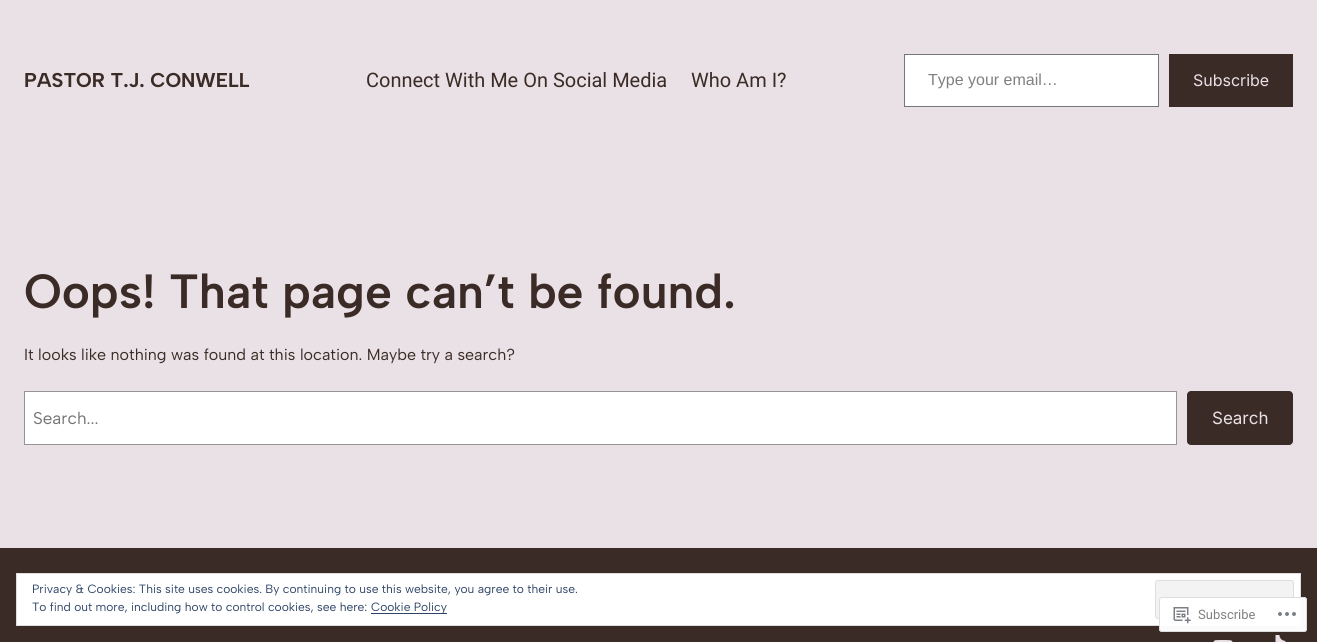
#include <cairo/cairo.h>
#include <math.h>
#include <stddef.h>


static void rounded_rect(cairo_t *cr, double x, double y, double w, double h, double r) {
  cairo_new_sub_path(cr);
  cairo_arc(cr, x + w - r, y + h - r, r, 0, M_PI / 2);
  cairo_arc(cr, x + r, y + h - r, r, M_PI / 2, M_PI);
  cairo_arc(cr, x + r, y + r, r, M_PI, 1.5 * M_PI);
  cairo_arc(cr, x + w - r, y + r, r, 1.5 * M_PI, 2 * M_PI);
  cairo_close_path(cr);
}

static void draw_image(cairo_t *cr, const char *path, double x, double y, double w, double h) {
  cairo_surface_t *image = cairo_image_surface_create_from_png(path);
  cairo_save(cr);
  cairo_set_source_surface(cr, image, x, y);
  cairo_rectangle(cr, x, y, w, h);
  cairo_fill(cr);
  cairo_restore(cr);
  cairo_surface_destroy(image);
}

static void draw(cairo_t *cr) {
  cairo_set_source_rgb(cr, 233 / 255.0, 225 / 255.0, 229 / 255.0);
  cairo_paint(cr);
  cairo_set_source_rgb(cr, 1, 1, 1);
  cairo_rectangle(cr, 904.5, 54.5, 254, 52);
  cairo_fill_preserve(cr);
  cairo_set_source_rgb(cr, 118 / 255.0, 118 / 255.0, 118 / 255.0);
  cairo_set_line_width(cr, 1);
  cairo_stroke(cr);
  cairo_set_source_rgb(cr, 59 / 255.0, 43 / 255.0, 39 / 255.0);
  cairo_rectangle(cr, 1169, 54, 124, 53);
  cairo_fill(cr);
  cairo_set_source_rgb(cr, 1, 1, 1);
  cairo_rectangle(cr, 24.5, 391.5, 1152, 53);
  cairo_fill_preserve(cr);
  cairo_set_source_rgb(cr, 148 / 255.0, 148 / 255.0, 148 / 255.0);
  cairo_stroke(cr);
  cairo_set_source_rgb(cr, 59 / 255.0, 43 / 255.0, 39 / 255.0);
  rounded_rect(cr, 1187, 391, 106, 54, 4);
  cairo_fill(cr);
  cairo_rectangle(cr, 0, 548, 1317, 94);
  cairo_fill(cr);
  draw_image(cr, "images/1.png", 1213, 640, 20, 2);
  draw_image(cr, "images/2.png", 1275, 635, 11, 7);
  cairo_set_source_rgb(cr, 1, 1, 1);
  cairo_rectangle(cr, 16.5, 573.5, 1284, 52);
  cairo_fill_preserve(cr);
  cairo_set_source_rgb(cr, 222 / 255.0, 222 / 255.0, 222 / 255.0);
  cairo_stroke(cr);
  cairo_set_source_rgb(cr, 243 / 255.0, 243 / 255.0, 243 / 255.0);
  rounded_rect(cr, 1155.5, 580.5, 138, 38, 2.5);
  cairo_fill_preserve(cr);
  cairo_set_source_rgb(cr, 222 / 255.0, 222 / 255.0, 222 / 255.0);
  cairo_stroke(cr);
  cairo_set_source_rgb(cr, 46 / 255.0, 68 / 255.0, 103 / 255.0);
  cairo_rectangle(cr, 371, 613, 76, 1);
  cairo_fill(cr);
  cairo_set_source_rgba(cr, 1, 1, 1, 0.98);
  rounded_rect(cr, 1159, 597, 148, 35, 3);
  cairo_fill(cr);
  rounded_rect(cr, 1159.5, 597.5, 147, 34, 2.5);
  cairo_set_source_rgba(cr, 220 / 255.0, 220 / 255.0, 222 / 255.0, 0.98);
  cairo_stroke(cr);
  draw_image(cr, "images/3.png", 1173, 607, 18, 17);
  draw_image(cr, "images/4.png", 1278, 612, 18, 4);
  cairo_select_font_face(cr, "Albert Sans", CAIRO_FONT_SLANT_NORMAL, CAIRO_FONT_WEIGHT_BOLD);
  cairo_set_font_size(cr, 20);
  cairo_set_source_rgb(cr, 59 / 255.0, 43 / 255.0, 39 / 255.0);
  cairo_move_to(cr, 24, 87);
  cairo_show_text(cr, "PASTOR T.J. CONWELL");
  cairo_select_font_face(cr, "Roboto", CAIRO_FONT_SLANT_NORMAL, CAIRO_FONT_WEIGHT_NORMAL);
  cairo_move_to(cr, 366, 87);
  cairo_show_text(cr, "Connect With Me On Social Media");
  cairo_move_to(cr, 691, 87);
  cairo_show_text(cr, "Who Am I?");
  cairo_select_font_face(cr, "Liberation Sans", CAIRO_FONT_SLANT_NORMAL, CAIRO_FONT_WEIGHT_NORMAL);
  cairo_set_font_size(cr, 16);
  cairo_set_source_rgb(cr, 128 / 255.0, 128 / 255.0, 128 / 255.0);
  cairo_move_to(cr, 928, 85);
  cairo_show_text(cr, "Type your email…");
  cairo_select_font_face(cr, "Inter", CAIRO_FONT_SLANT_NORMAL, CAIRO_FONT_WEIGHT_NORMAL);
  cairo_set_source_rgb(cr, 233 / 255.0, 225 / 255.0, 229 / 255.0);
  cairo_move_to(cr, 1193, 86);
  cairo_show_text(cr, "Subscribe");
  cairo_select_font_face(cr, "Albert Sans SemiBold", CAIRO_FONT_SLANT_NORMAL, CAIRO_FONT_WEIGHT_NORMAL);
  cairo_set_font_size(cr, 48);
  cairo_set_source_rgb(cr, 59 / 255.0, 43 / 255.0, 39 / 255.0);
  cairo_move_to(cr, 24, 308);
  cairo_show_text(cr, "Oops! That page can’t be found.");
  cairo_select_font_face(cr, "Albert Sans", CAIRO_FONT_SLANT_NORMAL, CAIRO_FONT_WEIGHT_NORMAL);
  cairo_set_font_size(cr, 16);
  cairo_move_to(cr, 24, 360);
  cairo_show_text(cr, "It looks like nothing was found at this location. Maybe try a search?");
  cairo_set_font_size(cr, 17);
  cairo_set_source_rgb(cr, 117 / 255.0, 117 / 255.0, 117 / 255.0);
  cairo_move_to(cr, 33, 424);
  cairo_show_text(cr, "Search...");
  cairo_select_font_face(cr, "Inter", CAIRO_FONT_SLANT_NORMAL, CAIRO_FONT_WEIGHT_NORMAL);
  cairo_set_source_rgb(cr, 233 / 255.0, 225 / 255.0, 229 / 255.0);
  cairo_move_to(cr, 1212, 424);
  cairo_show_text(cr, "Search");
  cairo_select_font_face(cr, "Albert Sans", CAIRO_FONT_SLANT_NORMAL, CAIRO_FONT_WEIGHT_NORMAL);
  cairo_set_font_size(cr, 12);
  cairo_set_source_rgb(cr, 46 / 255.0, 68 / 255.0, 103 / 255.0);
  cairo_move_to(cr, 32, 593);
  cairo_show_text(cr, "Privacy & Cookies: This site uses cookies. By continuing to use this website, you agree to their use.");
  cairo_move_to(cr, 32, 611);
  cairo_show_text(cr, "To find out more, including how to control cookies, see here:");
  cairo_move_to(cr, 371, 611);
  cairo_show_text(cr, "Cookie Policy");
  cairo_select_font_face(cr, "Roboto", CAIRO_FONT_SLANT_NORMAL, CAIRO_FONT_WEIGHT_NORMAL);
  cairo_set_font_size(cr, 13);
  cairo_set_source_rgb(cr, 128 / 255.0, 128 / 255.0, 128 / 255.0);
  cairo_move_to(cr, 1198, 619);
  cairo_show_text(cr, "Subscribe");
}

int main(void) {
  cairo_surface_t *surface = cairo_image_surface_create(CAIRO_FORMAT_RGB24, 1317, 642);
  cairo_t *cr = cairo_create(surface);
  cairo_font_options_t *options = cairo_font_options_create();
  cairo_font_options_set_hint_metrics(options, CAIRO_HINT_METRICS_OFF);
  cairo_font_options_set_hint_style(options, CAIRO_HINT_STYLE_NONE);
  cairo_set_font_options(cr, options);
  cairo_set_miter_limit(cr, 4);
  draw(cr);
  cairo_surface_write_to_png(surface, "out.png");
  cairo_font_options_destroy(options);
  cairo_destroy(cr);
  cairo_surface_destroy(surface);
  return 0;
}
